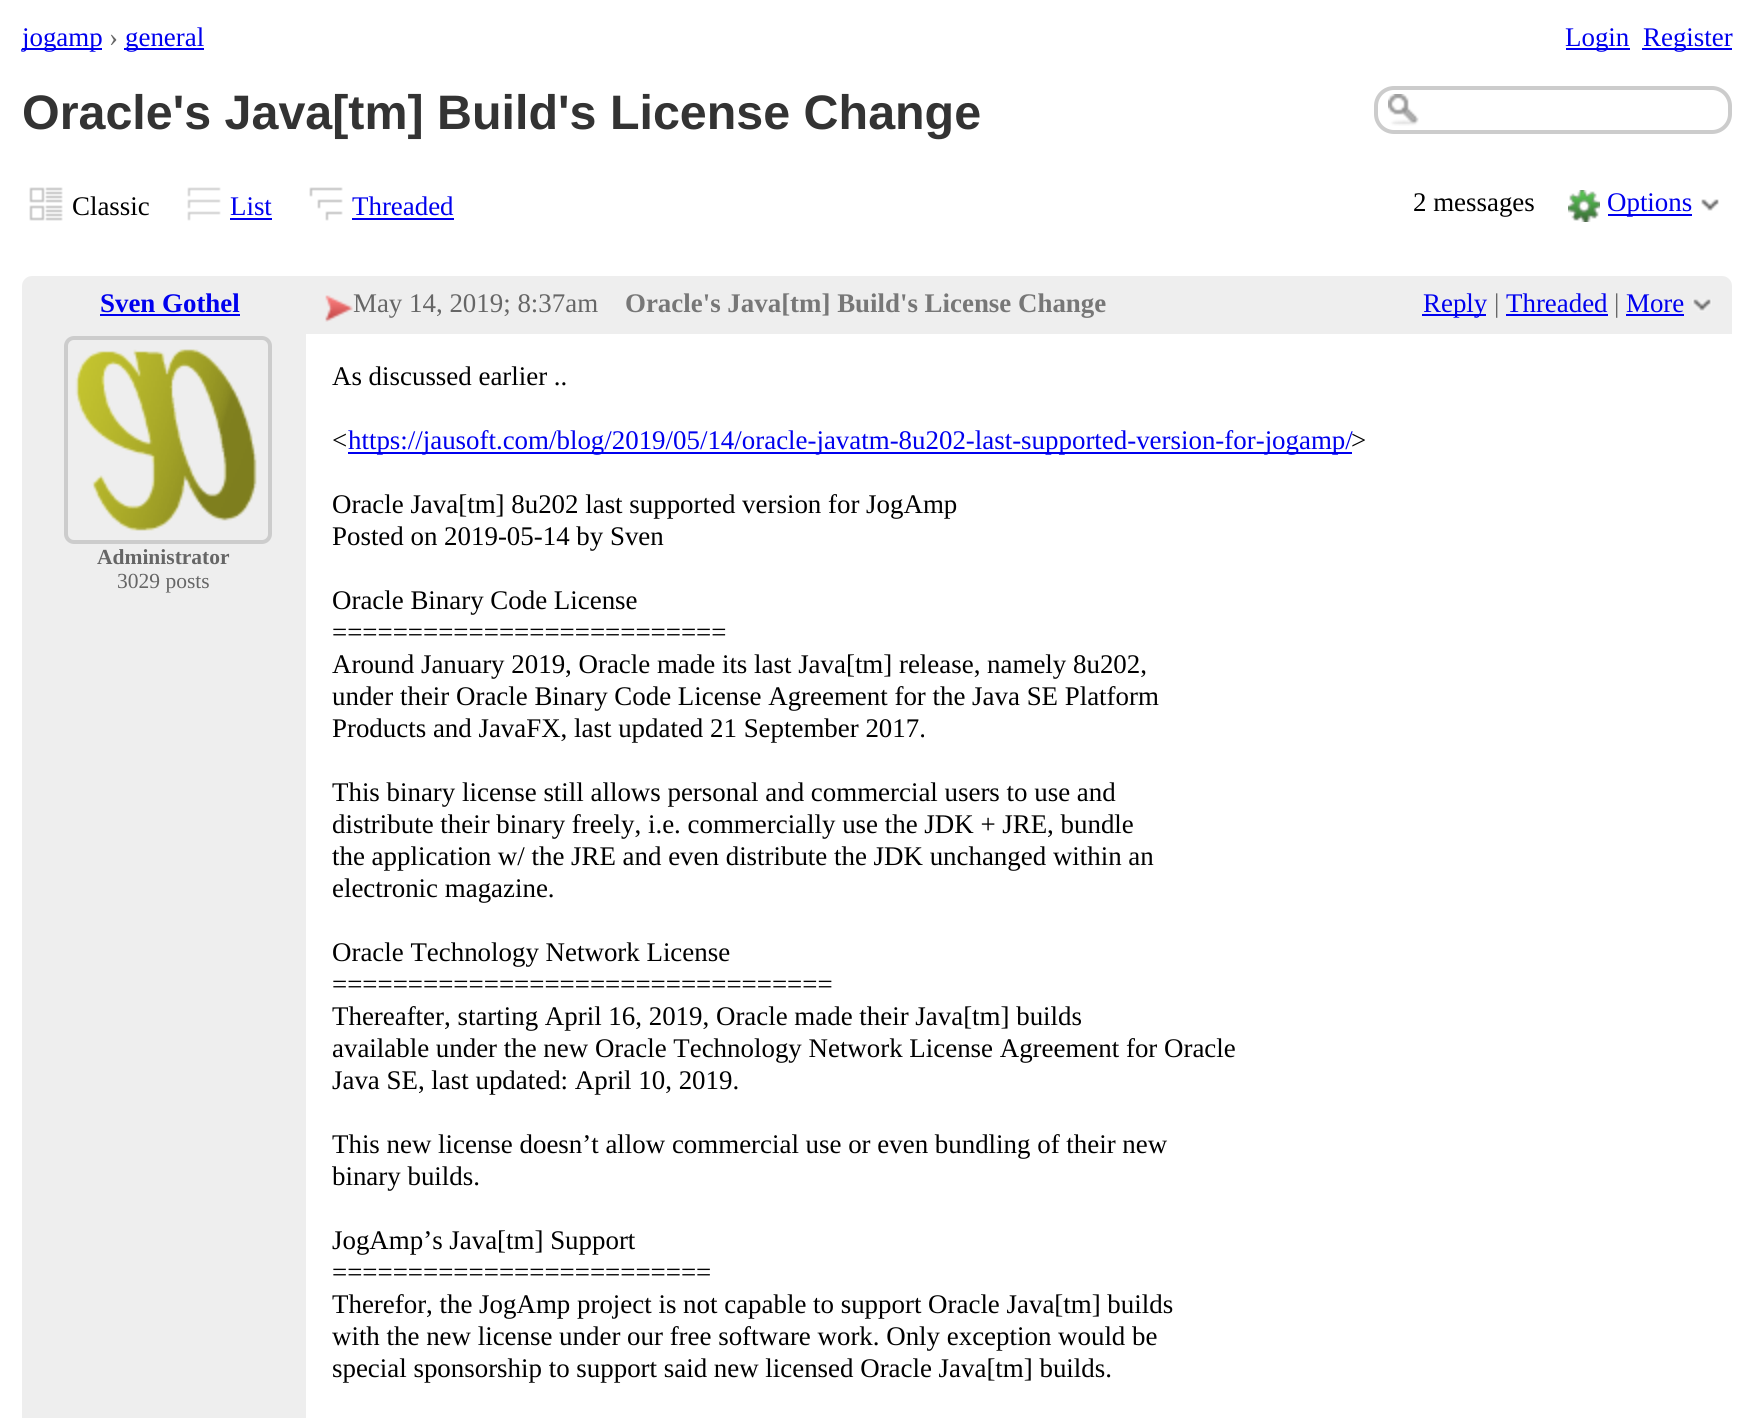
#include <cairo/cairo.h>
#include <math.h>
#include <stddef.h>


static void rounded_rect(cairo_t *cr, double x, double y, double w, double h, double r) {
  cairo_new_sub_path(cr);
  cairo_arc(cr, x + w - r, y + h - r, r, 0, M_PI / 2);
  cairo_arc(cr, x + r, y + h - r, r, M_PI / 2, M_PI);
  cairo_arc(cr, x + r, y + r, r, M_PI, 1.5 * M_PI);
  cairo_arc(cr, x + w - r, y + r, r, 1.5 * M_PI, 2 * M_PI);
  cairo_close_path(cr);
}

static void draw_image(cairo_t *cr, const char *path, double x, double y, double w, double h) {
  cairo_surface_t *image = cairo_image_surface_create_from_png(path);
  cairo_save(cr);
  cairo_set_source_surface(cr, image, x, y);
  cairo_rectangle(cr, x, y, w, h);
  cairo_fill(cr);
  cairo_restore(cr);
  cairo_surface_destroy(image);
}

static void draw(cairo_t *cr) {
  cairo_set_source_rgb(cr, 1, 1, 1);
  cairo_paint(cr);
  cairo_set_source_rgb(cr, 0, 0, 238 / 255.0);
  cairo_rectangle(cr, 22, 48, 80, 2);
  cairo_fill(cr);
  cairo_rectangle(cr, 124, 48, 80, 2);
  cairo_fill(cr);
  cairo_rectangle(cr, 1566, 48, 64, 2);
  cairo_fill(cr);
  cairo_rectangle(cr, 1642, 48, 90, 2);
  cairo_fill(cr);
  draw_image(cr, "images/1.png", 1388, 94, 31, 32);
  rounded_rect(cr, 1376, 88, 354, 44, 18);
  cairo_set_source_rgb(cr, 204 / 255.0, 204 / 255.0, 204 / 255.0);
  cairo_set_line_width(cr, 4);
  cairo_stroke(cr);
  draw_image(cr, "images/2.png", 29, 187, 34, 34);
  draw_image(cr, "images/3.png", 187, 187, 34, 34);
  cairo_set_source_rgb(cr, 0, 0, 238 / 255.0);
  cairo_rectangle(cr, 230, 218, 42, 2);
  cairo_fill(cr);
  draw_image(cr, "images/4.png", 309, 187, 34, 34);
  cairo_rectangle(cr, 352, 218, 102, 2);
  cairo_fill(cr);
  draw_image(cr, "images/5.png", 1568, 190, 32, 32);
  cairo_rectangle(cr, 1608, 214, 84, 2);
  cairo_fill(cr);
  draw_image(cr, "images/6.png", 1701, 199, 18, 12);
  cairo_set_source_rgb(cr, 238 / 255.0, 238 / 255.0, 238 / 255.0);
  cairo_new_path(cr);
  cairo_move_to(cr, 32, 276);
  cairo_line_to(cr, 1722, 276);
  cairo_curve_to(cr, 1727.5, 276, 1732, 280.5, 1732, 286);
  cairo_line_to(cr, 1732, 334);
  cairo_line_to(cr, 22, 334);
  cairo_line_to(cr, 22, 286);
  cairo_curve_to(cr, 22, 280.5, 26.5, 276, 32, 276);
  cairo_close_path(cr);
  cairo_fill(cr);
  cairo_set_source_rgb(cr, 0, 0, 238 / 255.0);
  cairo_rectangle(cr, 100, 314, 140, 2);
  cairo_fill(cr);
  draw_image(cr, "images/7.png", 325, 295, 28, 27);
  cairo_rectangle(cr, 1422, 314, 64, 2);
  cairo_fill(cr);
  cairo_rectangle(cr, 1506, 314, 102, 2);
  cairo_fill(cr);
  cairo_rectangle(cr, 1626, 314, 58, 2);
  cairo_fill(cr);
  draw_image(cr, "images/8.png", 1692, 299, 20, 13);
  cairo_set_source_rgb(cr, 238 / 255.0, 238 / 255.0, 238 / 255.0);
  cairo_rectangle(cr, 22, 334, 284, 1084);
  cairo_fill(cr);
  rounded_rect(cr, 66, 338, 204, 204, 8);
  cairo_set_source_rgb(cr, 204 / 255.0, 204 / 255.0, 204 / 255.0);
  cairo_stroke(cr);
  draw_image(cr, "images/9.png", 75, 349, 182, 182);
  cairo_set_source_rgb(cr, 0, 0, 238 / 255.0);
  cairo_rectangle(cr, 348, 452, 1004, 2);
  cairo_fill(cr);
  cairo_select_font_face(cr, "Liberation Serif", CAIRO_FONT_SLANT_NORMAL, CAIRO_FONT_WEIGHT_NORMAL);
  cairo_set_font_size(cr, 26.9);
  cairo_move_to(cr, 22, 46);
  cairo_show_text(cr, "jogamp");
  cairo_set_source_rgb(cr, 102 / 255.0, 102 / 255.0, 102 / 255.0);
  cairo_move_to(cr, 109, 46);
  cairo_show_text(cr, "›");
  cairo_set_source_rgb(cr, 0, 0, 238 / 255.0);
  cairo_move_to(cr, 125, 46);
  cairo_show_text(cr, "general");
  cairo_move_to(cr, 1565, 46);
  cairo_show_text(cr, "Login");
  cairo_move_to(cr, 1643, 46);
  cairo_show_text(cr, "Register");
  cairo_select_font_face(cr, "Liberation Sans", CAIRO_FONT_SLANT_NORMAL, CAIRO_FONT_WEIGHT_BOLD);
  cairo_set_font_size(cr, 48.4);
  cairo_set_source_rgb(cr, 51 / 255.0, 51 / 255.0, 51 / 255.0);
  cairo_move_to(cr, 22, 129);
  cairo_show_text(cr, "Oracle's Java[tm] Build's License Change");
  cairo_select_font_face(cr, "Liberation Serif", CAIRO_FONT_SLANT_NORMAL, CAIRO_FONT_WEIGHT_NORMAL);
  cairo_set_font_size(cr, 26.9);
  cairo_set_source_rgb(cr, 0, 0, 0);
  cairo_move_to(cr, 72, 215);
  cairo_show_text(cr, "Classic");
  cairo_set_source_rgb(cr, 0, 0, 238 / 255.0);
  cairo_move_to(cr, 230, 215);
  cairo_show_text(cr, "List");
  cairo_move_to(cr, 352, 215);
  cairo_show_text(cr, "Threaded");
  cairo_set_source_rgb(cr, 0, 0, 0);
  cairo_move_to(cr, 1413, 211);
  cairo_show_text(cr, "2 messages");
  cairo_set_source_rgb(cr, 0, 0, 238 / 255.0);
  cairo_move_to(cr, 1607, 211);
  cairo_show_text(cr, "Options");
  cairo_select_font_face(cr, "Liberation Serif", CAIRO_FONT_SLANT_NORMAL, CAIRO_FONT_WEIGHT_BOLD);
  cairo_move_to(cr, 100, 312);
  cairo_show_text(cr, "Sven Gothel");
  cairo_select_font_face(cr, "Liberation Serif", CAIRO_FONT_SLANT_NORMAL, CAIRO_FONT_WEIGHT_NORMAL);
  cairo_set_source_rgb(cr, 102 / 255.0, 102 / 255.0, 102 / 255.0);
  cairo_move_to(cr, 353, 312);
  cairo_show_text(cr, "May 14, 2019; 8:37am");
  cairo_select_font_face(cr, "Liberation Serif", CAIRO_FONT_SLANT_NORMAL, CAIRO_FONT_WEIGHT_BOLD);
  cairo_set_source_rgb(cr, 119 / 255.0, 119 / 255.0, 119 / 255.0);
  cairo_move_to(cr, 625, 312);
  cairo_show_text(cr, "Oracle's Java[tm] Build's License Change");
  cairo_select_font_face(cr, "Liberation Serif", CAIRO_FONT_SLANT_NORMAL, CAIRO_FONT_WEIGHT_NORMAL);
  cairo_set_source_rgb(cr, 0, 0, 238 / 255.0);
  cairo_move_to(cr, 1423, 312);
  cairo_show_text(cr, "Reply");
  cairo_set_source_rgb(cr, 102 / 255.0, 102 / 255.0, 102 / 255.0);
  cairo_move_to(cr, 1494, 312);
  cairo_show_text(cr, "|");
  cairo_set_source_rgb(cr, 0, 0, 238 / 255.0);
  cairo_move_to(cr, 1506, 312);
  cairo_show_text(cr, "Threaded");
  cairo_set_source_rgb(cr, 102 / 255.0, 102 / 255.0, 102 / 255.0);
  cairo_move_to(cr, 1614, 312);
  cairo_show_text(cr, "|");
  cairo_set_source_rgb(cr, 0, 0, 238 / 255.0);
  cairo_move_to(cr, 1626, 312);
  cairo_show_text(cr, "More");
  cairo_select_font_face(cr, "Liberation Serif", CAIRO_FONT_SLANT_NORMAL, CAIRO_FONT_WEIGHT_BOLD);
  cairo_set_font_size(cr, 21.5);
  cairo_set_source_rgb(cr, 102 / 255.0, 102 / 255.0, 102 / 255.0);
  cairo_move_to(cr, 97, 564);
  cairo_show_text(cr, "Administrator");
  cairo_select_font_face(cr, "Liberation Serif", CAIRO_FONT_SLANT_NORMAL, CAIRO_FONT_WEIGHT_NORMAL);
  cairo_move_to(cr, 117, 588);
  cairo_show_text(cr, "3029 posts");
  cairo_set_font_size(cr, 26.9);
  cairo_set_source_rgb(cr, 0, 0, 0);
  cairo_move_to(cr, 332, 385);
  cairo_show_text(cr, "As discussed earlier ..");
  cairo_move_to(cr, 332, 449);
  cairo_show_text(cr, "<");
  cairo_set_source_rgb(cr, 0, 0, 238 / 255.0);
  cairo_move_to(cr, 348, 449);
  cairo_show_text(cr, "https://jausoft.com/blog/2019/05/14/oracle-javatm-8u202-last-supported-version-for-jogamp/");
  cairo_set_source_rgb(cr, 0, 0, 0);
  cairo_move_to(cr, 1351, 449);
  cairo_show_text(cr, ">");
  cairo_move_to(cr, 332, 513);
  cairo_show_text(cr, "Oracle Java[tm] 8u202 last supported version for JogAmp");
  cairo_move_to(cr, 332, 545);
  cairo_show_text(cr, "Posted on 2019-05-14 by Sven");
  cairo_move_to(cr, 332, 609);
  cairo_show_text(cr, "Oracle Binary Code License");
  cairo_move_to(cr, 332, 641);
  cairo_show_text(cr, "==========================");
  cairo_move_to(cr, 332, 673);
  cairo_show_text(cr, "Around January 2019, Oracle made its last Java[tm] release, namely 8u202,");
  cairo_move_to(cr, 332, 705);
  cairo_show_text(cr, "under their Oracle Binary Code License Agreement for the Java SE Platform");
  cairo_move_to(cr, 332, 737);
  cairo_show_text(cr, "Products and JavaFX, last updated 21 September 2017.");
  cairo_move_to(cr, 332, 801);
  cairo_show_text(cr, "This binary license still allows personal and commercial users to use and");
  cairo_move_to(cr, 332, 833);
  cairo_show_text(cr, "distribute their binary freely, i.e. commercially use the JDK + JRE, bundle");
  cairo_move_to(cr, 332, 865);
  cairo_show_text(cr, "the application w/ the JRE and even distribute the JDK unchanged within an");
  cairo_move_to(cr, 332, 897);
  cairo_show_text(cr, "electronic magazine.");
  cairo_move_to(cr, 332, 961);
  cairo_show_text(cr, "Oracle Technology Network License");
  cairo_move_to(cr, 332, 993);
  cairo_show_text(cr, "=================================");
  cairo_move_to(cr, 332, 1025);
  cairo_show_text(cr, "Thereafter, starting April 16, 2019, Oracle made their Java[tm] builds");
  cairo_move_to(cr, 332, 1057);
  cairo_show_text(cr, "available under the new Oracle Technology Network License Agreement for Oracle");
  cairo_move_to(cr, 332, 1089);
  cairo_show_text(cr, "Java SE, last updated: April 10, 2019.");
  cairo_move_to(cr, 332, 1153);
  cairo_show_text(cr, "This new license doesn’t allow commercial use or even bundling of their new");
  cairo_move_to(cr, 332, 1185);
  cairo_show_text(cr, "binary builds.");
  cairo_move_to(cr, 332, 1249);
  cairo_show_text(cr, "JogAmp’s Java[tm] Support");
  cairo_move_to(cr, 332, 1281);
  cairo_show_text(cr, "=========================");
  cairo_move_to(cr, 332, 1313);
  cairo_show_text(cr, "Therefor, the JogAmp project is not capable to support Oracle Java[tm] builds");
  cairo_move_to(cr, 332, 1345);
  cairo_show_text(cr, "with the new license under our free software work. Only exception would be");
  cairo_move_to(cr, 332, 1377);
  cairo_show_text(cr, "special sponsorship to support said new licensed Oracle Java[tm] builds.");
}

int main(void) {
  cairo_surface_t *surface = cairo_image_surface_create(CAIRO_FORMAT_RGB24, 1753, 1418);
  cairo_t *cr = cairo_create(surface);
  cairo_font_options_t *options = cairo_font_options_create();
  cairo_font_options_set_hint_metrics(options, CAIRO_HINT_METRICS_OFF);
  cairo_font_options_set_hint_style(options, CAIRO_HINT_STYLE_NONE);
  cairo_set_font_options(cr, options);
  cairo_set_miter_limit(cr, 4);
  draw(cr);
  cairo_surface_write_to_png(surface, "out.png");
  cairo_font_options_destroy(options);
  cairo_destroy(cr);
  cairo_surface_destroy(surface);
  return 0;
}
